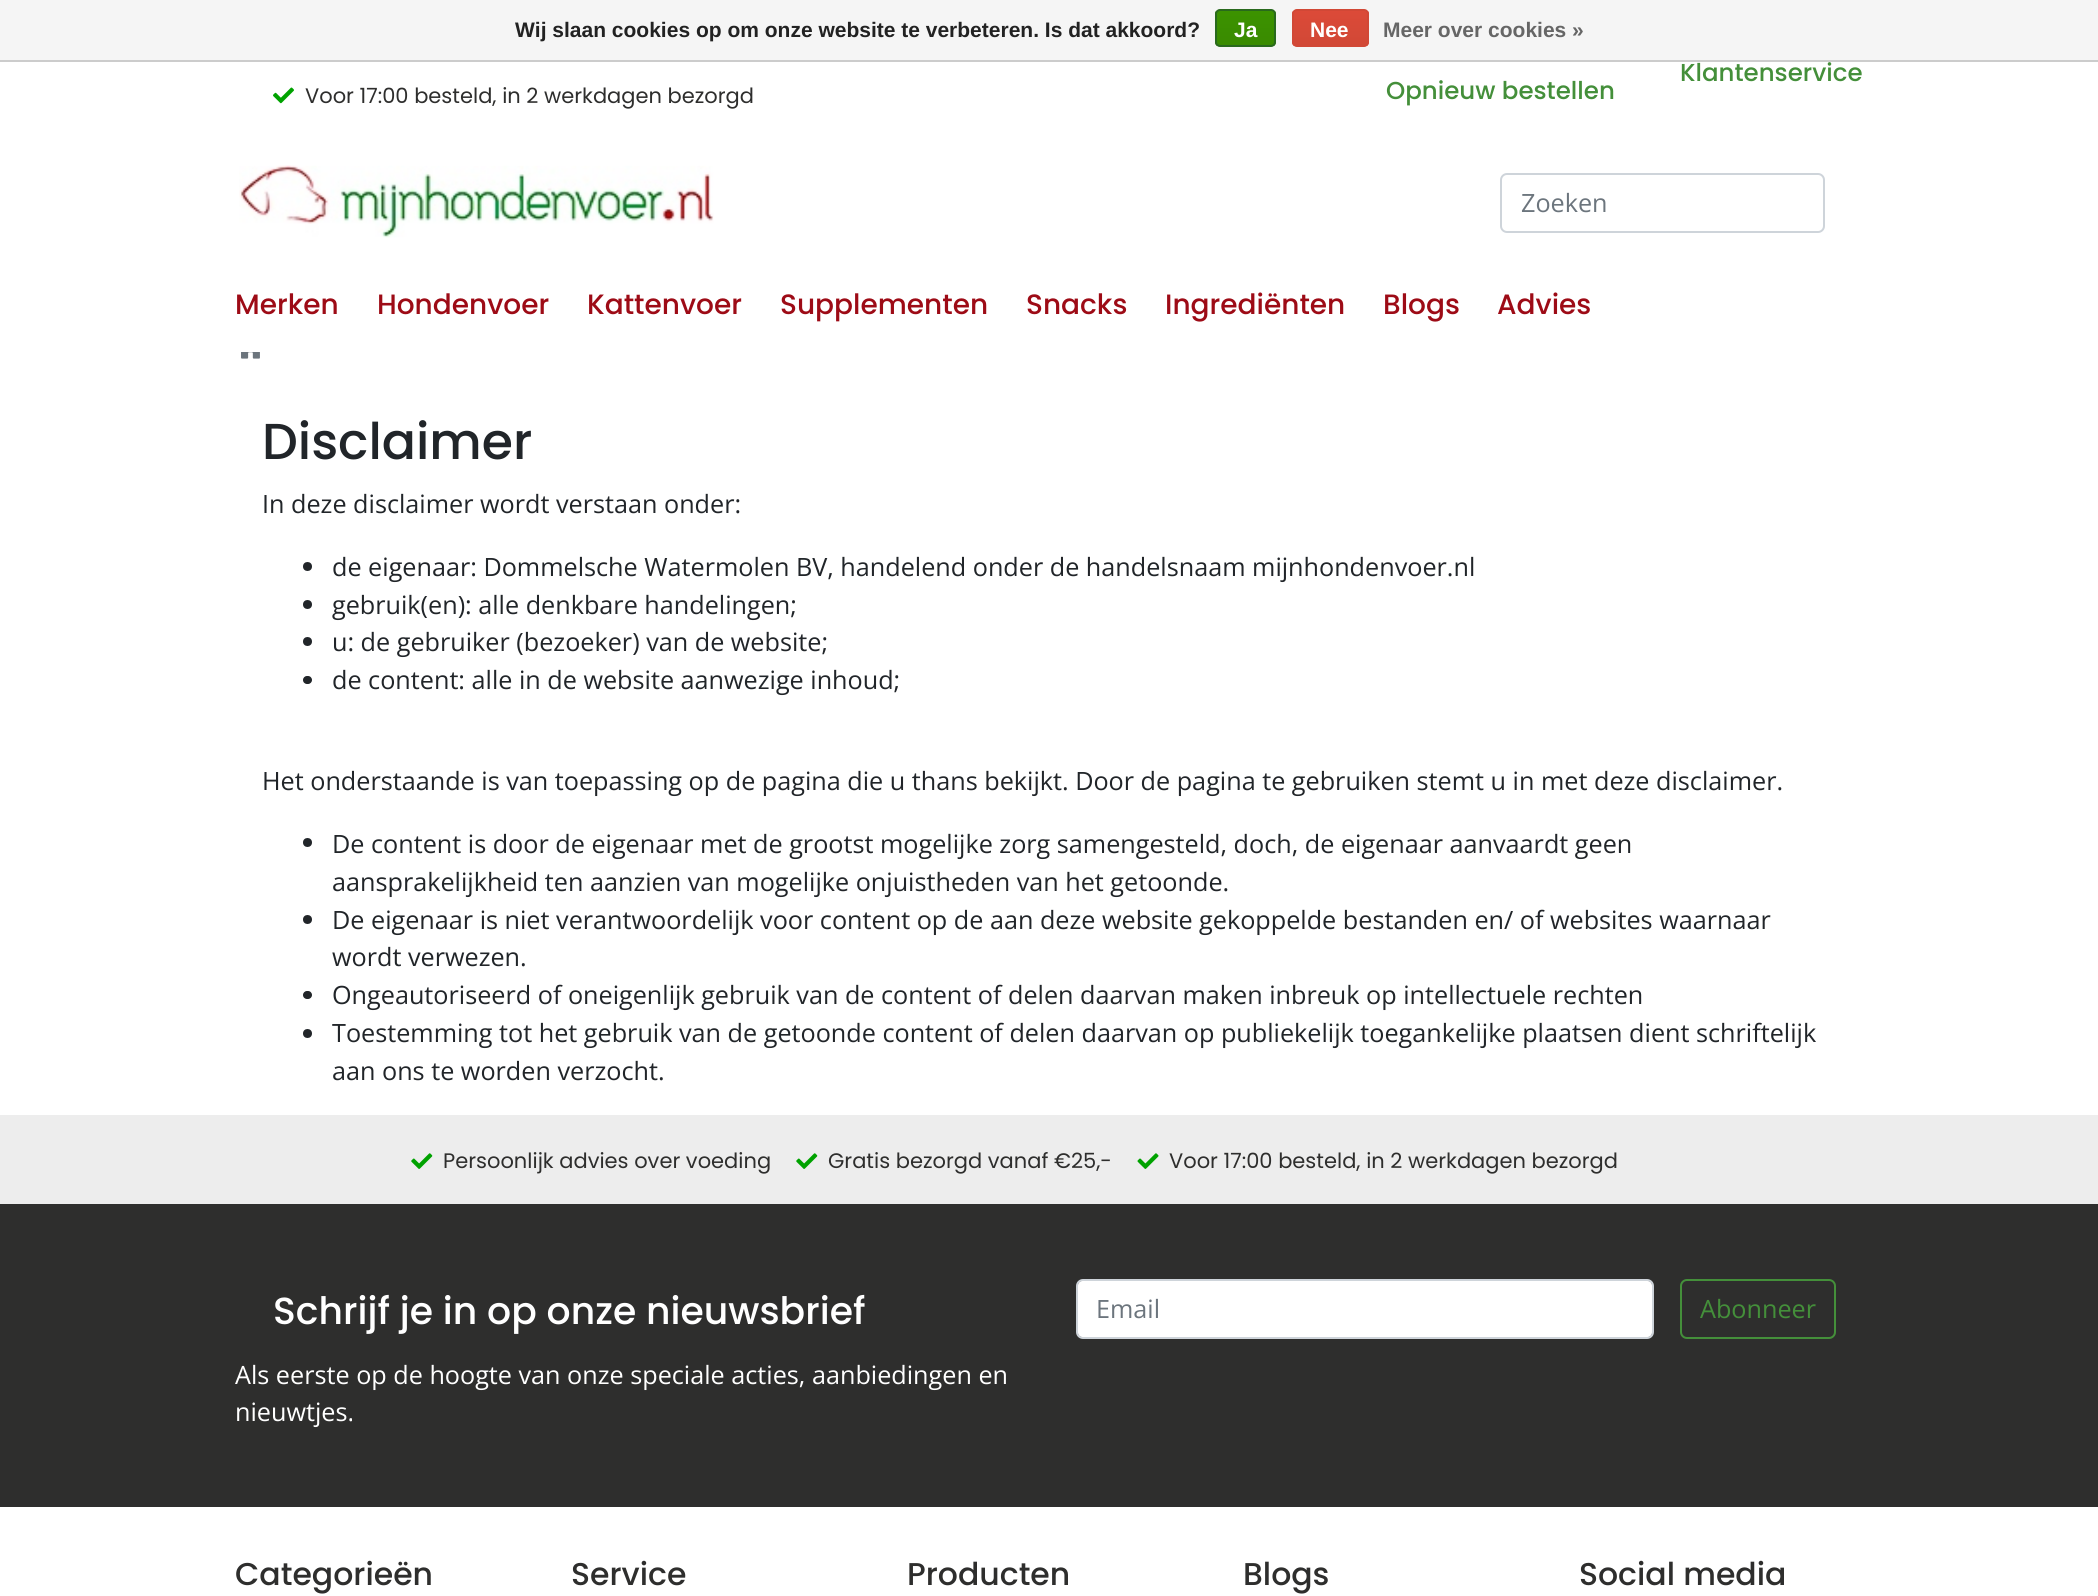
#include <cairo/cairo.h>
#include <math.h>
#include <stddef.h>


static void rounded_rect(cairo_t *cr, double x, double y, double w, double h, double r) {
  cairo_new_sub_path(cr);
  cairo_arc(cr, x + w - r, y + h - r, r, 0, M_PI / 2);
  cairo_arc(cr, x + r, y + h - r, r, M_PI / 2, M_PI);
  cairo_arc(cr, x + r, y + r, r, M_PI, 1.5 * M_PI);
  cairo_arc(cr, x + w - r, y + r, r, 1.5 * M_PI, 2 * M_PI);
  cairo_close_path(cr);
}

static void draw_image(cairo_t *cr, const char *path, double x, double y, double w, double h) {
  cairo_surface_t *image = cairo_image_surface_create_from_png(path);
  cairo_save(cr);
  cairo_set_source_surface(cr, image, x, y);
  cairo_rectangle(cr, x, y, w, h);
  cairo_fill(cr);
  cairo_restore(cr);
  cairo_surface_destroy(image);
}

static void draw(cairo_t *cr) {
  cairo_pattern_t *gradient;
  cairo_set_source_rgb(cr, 1, 1, 1);
  cairo_paint(cr);
  cairo_set_source_rgb(cr, 245 / 255.0, 245 / 255.0, 245 / 255.0);
  cairo_rectangle(cr, 0, 0, 2098, 60);
  cairo_fill(cr);
  cairo_set_source_rgb(cr, 204 / 255.0, 204 / 255.0, 204 / 255.0);
  cairo_rectangle(cr, 0, 60, 2098, 2);
  cairo_fill(cr);
  cairo_save(cr);
  rounded_rect(cr, 1215, 9, 61, 38, 5);
  cairo_clip(cr);
  gradient = cairo_pattern_create_linear(1245, 10, 1245, 46);
  cairo_pattern_add_color_stop_rgba(gradient, 0, 60 / 255.0, 147 / 255.0, 0, 1);
  cairo_pattern_add_color_stop_rgba(gradient, 1, 57 / 255.0, 138 / 255.0, 0, 1);
  cairo_set_source(cr, gradient);
  cairo_pattern_destroy(gradient);
  cairo_rectangle(cr, 1215, 11, 61, 35);
  cairo_fill(cr);
  cairo_restore(cr);
  rounded_rect(cr, 1216, 10, 59, 36, 4);
  cairo_set_source_rgb(cr, 41 / 255.0, 105 / 255.0, 29 / 255.0);
  cairo_stroke(cr);
  cairo_save(cr);
  rounded_rect(cr, 1292, 9, 77, 38, 5);
  cairo_clip(cr);
  gradient = cairo_pattern_create_linear(1330, 10, 1330, 46);
  cairo_pattern_add_color_stop_rgba(gradient, 0, 220 / 255.0, 74 / 255.0, 56 / 255.0, 1);
  cairo_pattern_add_color_stop_rgba(gradient, 1, 209 / 255.0, 72 / 255.0, 54 / 255.0, 1);
  cairo_set_source(cr, gradient);
  cairo_pattern_destroy(gradient);
  cairo_rectangle(cr, 1292, 11, 77, 35);
  cairo_fill(cr);
  cairo_restore(cr);
  rounded_rect(cr, 1293, 10, 75, 36, 4);
  cairo_set_source_rgb(cr, 209 / 255.0, 72 / 255.0, 54 / 255.0);
  cairo_stroke(cr);
  draw_image(cr, "images/1.png", 273, 87, 21, 17);
  draw_image(cr, "images/2.png", 239, 165, 475, 73);
  rounded_rect(cr, 1501, 174, 323, 58, 6);
  cairo_set_source_rgb(cr, 206 / 255.0, 212 / 255.0, 218 / 255.0);
  cairo_stroke(cr);
  draw_image(cr, "images/3.png", 241, 352, 19, 7);
  cairo_set_source_rgb(cr, 33 / 255.0, 37 / 255.0, 41 / 255.0);
  cairo_arc(cr, 307.5, 566.5, 4.5, 0, 2 * M_PI);
  cairo_fill(cr);
  cairo_arc(cr, 307.5, 604.5, 4.5, 0, 2 * M_PI);
  cairo_fill(cr);
  cairo_arc(cr, 307.5, 641.5, 4.5, 0, 2 * M_PI);
  cairo_fill(cr);
  rounded_rect(cr, 303, 676, 9, 8, 4);
  cairo_fill(cr);
  cairo_arc(cr, 307.5, 842.5, 4.5, 0, 2 * M_PI);
  cairo_fill(cr);
  cairo_arc(cr, 307.5, 919.5, 4.5, 0, 2 * M_PI);
  cairo_fill(cr);
  rounded_rect(cr, 303, 991, 9, 8, 4);
  cairo_fill(cr);
  cairo_arc(cr, 307.5, 1033.5, 4.5, 0, 2 * M_PI);
  cairo_fill(cr);
  cairo_set_source_rgb(cr, 237 / 255.0, 237 / 255.0, 237 / 255.0);
  cairo_rectangle(cr, 0, 1115, 2098, 89);
  cairo_fill(cr);
  draw_image(cr, "images/4.png", 411, 1153, 22, 16);
  draw_image(cr, "images/4.png", 796, 1153, 22, 16);
  draw_image(cr, "images/5.png", 1137, 1153, 22, 16);
  cairo_set_source_rgb(cr, 46 / 255.0, 46 / 255.0, 45 / 255.0);
  cairo_rectangle(cr, 0, 1204, 2098, 303);
  cairo_fill(cr);
  cairo_set_source_rgb(cr, 1, 1, 1);
  rounded_rect(cr, 1078, 1281, 574, 56, 4);
  cairo_fill(cr);
  rounded_rect(cr, 1077, 1280, 576, 58, 6);
  cairo_set_source_rgb(cr, 206 / 255.0, 212 / 255.0, 218 / 255.0);
  cairo_stroke(cr);
  rounded_rect(cr, 1681, 1280, 154, 58, 6);
  cairo_set_source_rgb(cr, 68 / 255.0, 143 / 255.0, 58 / 255.0);
  cairo_stroke(cr);
  cairo_select_font_face(cr, "Liberation Sans", CAIRO_FONT_SLANT_NORMAL, CAIRO_FONT_WEIGHT_BOLD);
  cairo_set_font_size(cr, 21);
  cairo_set_source_rgb(cr, 34 / 255.0, 34 / 255.0, 34 / 255.0);
  cairo_move_to(cr, 515, 37);
  cairo_show_text(cr, "Wij slaan cookies op om onze website te verbeteren. Is dat akkoord?");
  cairo_set_source_rgb(cr, 1, 1, 1);
  cairo_move_to(cr, 1234, 37);
  cairo_show_text(cr, "Ja");
  cairo_move_to(cr, 1310, 37);
  cairo_show_text(cr, "Nee");
  cairo_set_source_rgb(cr, 102 / 255.0, 102 / 255.0, 102 / 255.0);
  cairo_move_to(cr, 1383, 37);
  cairo_show_text(cr, "Meer over cookies »");
  cairo_select_font_face(cr, "Poppins", CAIRO_FONT_SLANT_NORMAL, CAIRO_FONT_WEIGHT_NORMAL);
  cairo_set_source_rgb(cr, 46 / 255.0, 46 / 255.0, 45 / 255.0);
  cairo_move_to(cr, 305, 103);
  cairo_show_text(cr, "Voor 17:00 besteld, in 2 werkdagen bezorgd");
  cairo_select_font_face(cr, "Poppins Medium", CAIRO_FONT_SLANT_NORMAL, CAIRO_FONT_WEIGHT_NORMAL);
  cairo_set_font_size(cr, 24.5);
  cairo_set_source_rgb(cr, 68 / 255.0, 143 / 255.0, 58 / 255.0);
  cairo_move_to(cr, 1680, 81);
  cairo_show_text(cr, "Klantenservice");
  cairo_move_to(cr, 1386, 99);
  cairo_show_text(cr, "Opnieuw bestellen");
  cairo_select_font_face(cr, "Open Sans", CAIRO_FONT_SLANT_NORMAL, CAIRO_FONT_WEIGHT_NORMAL);
  cairo_set_font_size(cr, 25.2);
  cairo_set_source_rgb(cr, 108 / 255.0, 117 / 255.0, 125 / 255.0);
  cairo_move_to(cr, 1521, 212);
  cairo_show_text(cr, "Zoeken");
  cairo_select_font_face(cr, "Poppins Medium", CAIRO_FONT_SLANT_NORMAL, CAIRO_FONT_WEIGHT_NORMAL);
  cairo_set_font_size(cr, 28);
  cairo_set_source_rgb(cr, 157 / 255.0, 11 / 255.0, 22 / 255.0);
  cairo_move_to(cr, 235, 314);
  cairo_show_text(cr, "Merken");
  cairo_move_to(cr, 377, 314);
  cairo_show_text(cr, "Hondenvoer");
  cairo_move_to(cr, 587, 314);
  cairo_show_text(cr, "Kattenvoer");
  cairo_move_to(cr, 780, 314);
  cairo_show_text(cr, "Supplementen");
  cairo_move_to(cr, 1026, 314);
  cairo_show_text(cr, "Snacks");
  cairo_move_to(cr, 1165, 314);
  cairo_show_text(cr, "Ingrediënten");
  cairo_move_to(cr, 1383, 314);
  cairo_show_text(cr, "Blogs");
  cairo_move_to(cr, 1497, 314);
  cairo_show_text(cr, "Advies");
  cairo_set_font_size(cr, 50.5);
  cairo_set_source_rgb(cr, 33 / 255.0, 37 / 255.0, 41 / 255.0);
  cairo_move_to(cr, 262, 459);
  cairo_show_text(cr, "Disclaimer");
  cairo_select_font_face(cr, "Open Sans", CAIRO_FONT_SLANT_NORMAL, CAIRO_FONT_WEIGHT_NORMAL);
  cairo_set_font_size(cr, 25.2);
  cairo_move_to(cr, 262, 513);
  cairo_show_text(cr, "In deze disclaimer wordt verstaan onder:");
  cairo_move_to(cr, 332, 576);
  cairo_show_text(cr, "de eigenaar: Dommelsche Watermolen BV, handelend onder de handelsnaam mijnhondenvoer.nl");
  cairo_move_to(cr, 332, 614);
  cairo_show_text(cr, "gebruik(en): alle denkbare handelingen;");
  cairo_move_to(cr, 332, 651);
  cairo_show_text(cr, "u: de gebruiker (bezoeker) van de website;");
  cairo_move_to(cr, 332, 689);
  cairo_show_text(cr, "de content: alle in de website aanwezige inhoud;");
  cairo_move_to(cr, 262, 790);
  cairo_show_text(cr, "Het onderstaande is van toepassing op de pagina die u thans bekijkt. Door de pagina te gebruiken stemt u in met deze disclaimer.");
  cairo_move_to(cr, 332, 853);
  cairo_show_text(cr, "De content is door de eigenaar met de grootst mogelijke zorg samengesteld, doch, de eigenaar aanvaardt geen");
  cairo_move_to(cr, 332, 891);
  cairo_show_text(cr, "aansprakelijkheid ten aanzien van mogelijke onjuistheden van het getoonde.");
  cairo_move_to(cr, 332, 929);
  cairo_show_text(cr, "De eigenaar is niet verantwoordelijk voor content op de aan deze website gekoppelde bestanden en/ of websites waarnaar");
  cairo_move_to(cr, 332, 966);
  cairo_show_text(cr, "wordt verwezen.");
  cairo_move_to(cr, 332, 1004);
  cairo_show_text(cr, "Ongeautoriseerd of oneigenlijk gebruik van de content of delen daarvan maken inbreuk op intellectuele rechten");
  cairo_move_to(cr, 332, 1042);
  cairo_show_text(cr, "Toestemming tot het gebruik van de getoonde content of delen daarvan op publiekelijk toegankelijke plaatsen dient schriftelijk");
  cairo_move_to(cr, 332, 1080);
  cairo_show_text(cr, "aan ons te worden verzocht.");
  cairo_select_font_face(cr, "Poppins", CAIRO_FONT_SLANT_NORMAL, CAIRO_FONT_WEIGHT_NORMAL);
  cairo_set_font_size(cr, 21);
  cairo_set_source_rgb(cr, 46 / 255.0, 46 / 255.0, 45 / 255.0);
  cairo_move_to(cr, 443, 1168);
  cairo_show_text(cr, "Persoonlijk advies over voeding");
  cairo_move_to(cr, 828, 1168);
  cairo_show_text(cr, "Gratis bezorgd vanaf €25,-");
  cairo_move_to(cr, 1169, 1168);
  cairo_show_text(cr, "Voor 17:00 besteld, in 2 werkdagen bezorgd");
  cairo_select_font_face(cr, "Poppins Medium", CAIRO_FONT_SLANT_NORMAL, CAIRO_FONT_WEIGHT_NORMAL);
  cairo_set_font_size(cr, 37.75);
  cairo_set_source_rgb(cr, 1, 1, 1);
  cairo_move_to(cr, 273, 1324);
  cairo_show_text(cr, "Schrijf je in op onze nieuwsbrief");
  cairo_select_font_face(cr, "Open Sans", CAIRO_FONT_SLANT_NORMAL, CAIRO_FONT_WEIGHT_NORMAL);
  cairo_set_font_size(cr, 25.2);
  cairo_move_to(cr, 235, 1384);
  cairo_show_text(cr, "Als eerste op de hoogte van onze speciale acties, aanbiedingen en");
  cairo_move_to(cr, 235, 1421);
  cairo_show_text(cr, "nieuwtjes.");
  cairo_set_source_rgb(cr, 108 / 255.0, 117 / 255.0, 125 / 255.0);
  cairo_move_to(cr, 1096, 1318);
  cairo_show_text(cr, "Email");
  cairo_set_source_rgb(cr, 68 / 255.0, 143 / 255.0, 58 / 255.0);
  cairo_move_to(cr, 1700, 1318);
  cairo_show_text(cr, "Abonneer");
  cairo_select_font_face(cr, "Poppins Medium", CAIRO_FONT_SLANT_NORMAL, CAIRO_FONT_WEIGHT_NORMAL);
  cairo_set_font_size(cr, 31.5);
  cairo_set_source_rgb(cr, 46 / 255.0, 46 / 255.0, 45 / 255.0);
  cairo_move_to(cr, 235, 1585);
  cairo_show_text(cr, "Categorieën");
  cairo_move_to(cr, 571, 1585);
  cairo_show_text(cr, "Service");
  cairo_move_to(cr, 907, 1585);
  cairo_show_text(cr, "Producten");
  cairo_move_to(cr, 1243, 1585);
  cairo_show_text(cr, "Blogs");
  cairo_move_to(cr, 1579, 1585);
  cairo_show_text(cr, "Social media");
}

int main(void) {
  cairo_surface_t *surface = cairo_image_surface_create(CAIRO_FORMAT_RGB24, 2098, 1596);
  cairo_t *cr = cairo_create(surface);
  cairo_font_options_t *options = cairo_font_options_create();
  cairo_font_options_set_hint_metrics(options, CAIRO_HINT_METRICS_OFF);
  cairo_font_options_set_hint_style(options, CAIRO_HINT_STYLE_NONE);
  cairo_set_font_options(cr, options);
  cairo_set_miter_limit(cr, 4);
  draw(cr);
  cairo_surface_write_to_png(surface, "out.png");
  cairo_font_options_destroy(options);
  cairo_destroy(cr);
  cairo_surface_destroy(surface);
  return 0;
}
